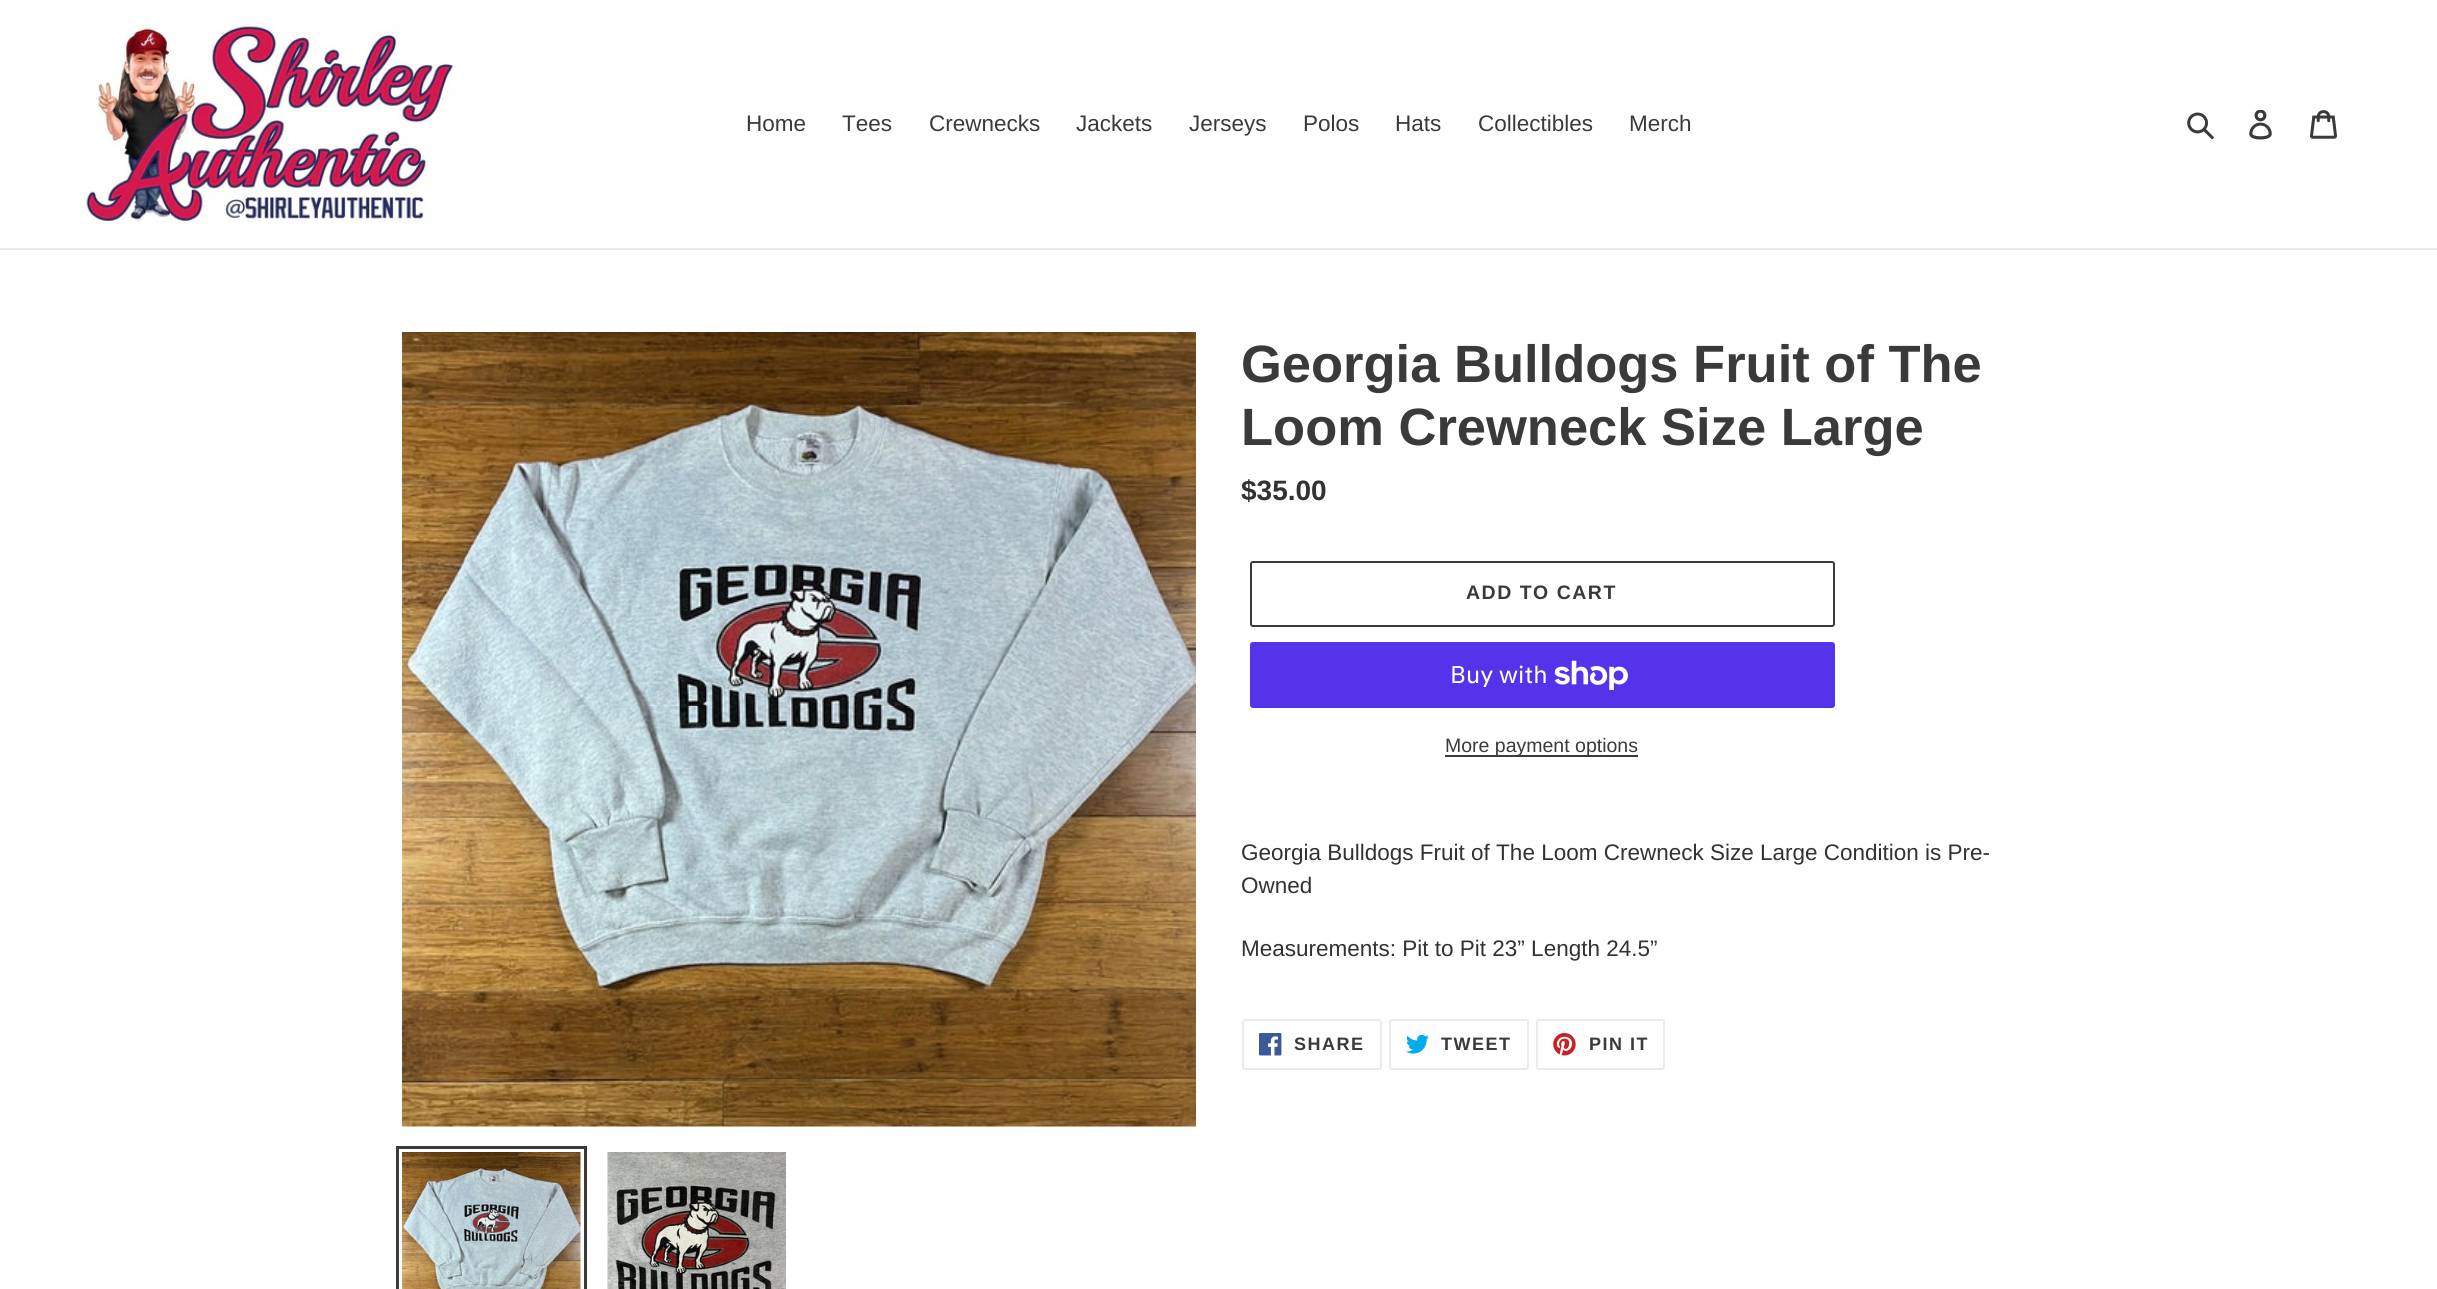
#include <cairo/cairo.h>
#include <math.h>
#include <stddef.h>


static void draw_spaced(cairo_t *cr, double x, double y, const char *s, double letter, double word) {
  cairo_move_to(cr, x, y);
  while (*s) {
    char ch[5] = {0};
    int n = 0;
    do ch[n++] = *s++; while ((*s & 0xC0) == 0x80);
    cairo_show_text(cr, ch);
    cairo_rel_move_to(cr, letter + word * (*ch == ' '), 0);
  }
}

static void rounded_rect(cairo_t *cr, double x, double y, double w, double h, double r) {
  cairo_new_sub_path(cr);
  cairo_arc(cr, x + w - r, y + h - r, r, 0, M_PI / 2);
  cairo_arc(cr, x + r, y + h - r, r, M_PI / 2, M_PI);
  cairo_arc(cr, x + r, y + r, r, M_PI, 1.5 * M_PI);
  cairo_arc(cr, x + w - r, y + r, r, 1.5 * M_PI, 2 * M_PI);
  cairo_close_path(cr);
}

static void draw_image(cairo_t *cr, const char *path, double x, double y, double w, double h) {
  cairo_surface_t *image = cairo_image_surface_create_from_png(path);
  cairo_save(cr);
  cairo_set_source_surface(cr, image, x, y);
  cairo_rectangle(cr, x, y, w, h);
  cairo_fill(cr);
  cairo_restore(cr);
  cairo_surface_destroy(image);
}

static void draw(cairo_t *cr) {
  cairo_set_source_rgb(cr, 1, 1, 1);
  cairo_paint(cr);
  cairo_set_source_rgb(cr, 235 / 255.0, 235 / 255.0, 235 / 255.0);
  cairo_rectangle(cr, 0, 248, 2437, 2);
  cairo_fill(cr);
  draw_image(cr, "images/1.png", 83, 22, 372, 200);
  draw_image(cr, "images/2.png", 2187, 112, 27, 28);
  draw_image(cr, "images/3.png", 2249, 110, 23, 30);
  draw_image(cr, "images/4.png", 2310, 110, 27, 29);
  draw_image(cr, "images/5.png", 402, 332, 794, 795);
  cairo_rectangle(cr, 397.5, 1147.5, 188, 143);
  cairo_set_source_rgb(cr, 58 / 255.0, 58 / 255.0, 58 / 255.0);
  cairo_set_line_width(cr, 3);
  cairo_stroke(cr);
  draw_image(cr, "images/6.png", 402, 1152, 179, 137);
  draw_image(cr, "images/7.png", 607, 1152, 179, 137);
  rounded_rect(cr, 1251, 562, 583, 64, 2);
  cairo_set_line_width(cr, 2);
  cairo_stroke(cr);
  cairo_set_source_rgb(cr, 84 / 255.0, 51 / 255.0, 235 / 255.0);
  rounded_rect(cr, 1250, 642, 585, 66, 3);
  cairo_fill(cr);
  draw_image(cr, "images/8.png", 1554, 660, 74, 30);
  cairo_set_source_rgb(cr, 58 / 255.0, 58 / 255.0, 58 / 255.0);
  cairo_rectangle(cr, 1445, 755, 193, 2);
  cairo_fill(cr);
  rounded_rect(cr, 1243, 1020, 138, 49, 2);
  cairo_set_source_rgb(cr, 235 / 255.0, 235 / 255.0, 235 / 255.0);
  cairo_stroke(cr);
  draw_image(cr, "images/9.png", 1259, 1033, 23, 23);
  rounded_rect(cr, 1390, 1020, 138, 49, 2);
  cairo_stroke(cr);
  draw_image(cr, "images/10.png", 1406, 1034, 23, 20);
  rounded_rect(cr, 1537, 1020, 127, 49, 2);
  cairo_stroke(cr);
  draw_image(cr, "images/11.png", 1553, 1033, 23, 23);
  cairo_select_font_face(cr, "Liberation Sans", CAIRO_FONT_SLANT_NORMAL, CAIRO_FONT_WEIGHT_NORMAL);
  cairo_set_font_size(cr, 22.5);
  cairo_set_source_rgb(cr, 58 / 255.0, 58 / 255.0, 58 / 255.0);
  cairo_move_to(cr, 746, 131);
  cairo_show_text(cr, "Home");
  cairo_move_to(cr, 842, 131);
  cairo_show_text(cr, "Tees");
  cairo_move_to(cr, 929, 131);
  cairo_show_text(cr, "Crewnecks");
  cairo_move_to(cr, 1076, 131);
  cairo_show_text(cr, "Jackets");
  cairo_move_to(cr, 1189, 131);
  cairo_show_text(cr, "Jerseys");
  cairo_move_to(cr, 1303, 131);
  cairo_show_text(cr, "Polos");
  cairo_move_to(cr, 1395, 131);
  cairo_show_text(cr, "Hats");
  cairo_move_to(cr, 1478, 131);
  cairo_show_text(cr, "Collectibles");
  cairo_move_to(cr, 1629, 131);
  cairo_show_text(cr, "Merch");
  cairo_select_font_face(cr, "Liberation Sans", CAIRO_FONT_SLANT_NORMAL, CAIRO_FONT_WEIGHT_BOLD);
  cairo_set_font_size(cr, 52.5);
  cairo_move_to(cr, 1241, 382);
  cairo_show_text(cr, "Georgia Bulldogs Fruit of The");
  cairo_move_to(cr, 1241, 445);
  cairo_show_text(cr, "Loom Crewneck Size Large");
  cairo_set_font_size(cr, 28);
  cairo_set_source_rgb(cr, 51 / 255.0, 50 / 255.0, 50 / 255.0);
  cairo_move_to(cr, 1241, 500);
  cairo_show_text(cr, "$35.00");
  cairo_set_font_size(cr, 19.5);
  cairo_set_source_rgb(cr, 58 / 255.0, 58 / 255.0, 58 / 255.0);
  draw_spaced(cr, 1466, 599, "ADD TO CART", 1.5, 0);
  cairo_select_font_face(cr, "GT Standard", CAIRO_FONT_SLANT_NORMAL, CAIRO_FONT_WEIGHT_NORMAL);
  cairo_set_font_size(cr, 24);
  cairo_set_source_rgb(cr, 1, 1, 1);
  cairo_move_to(cr, 1450, 683);
  cairo_show_text(cr, "Buy with");
  cairo_select_font_face(cr, "Liberation Sans", CAIRO_FONT_SLANT_NORMAL, CAIRO_FONT_WEIGHT_NORMAL);
  cairo_set_font_size(cr, 19.5);
  cairo_set_source_rgb(cr, 58 / 255.0, 58 / 255.0, 58 / 255.0);
  cairo_move_to(cr, 1445, 752);
  cairo_show_text(cr, "More payment options");
  cairo_set_font_size(cr, 22.5);
  cairo_set_source_rgb(cr, 51 / 255.0, 50 / 255.0, 50 / 255.0);
  cairo_move_to(cr, 1241, 860);
  cairo_show_text(cr, "Georgia Bulldogs Fruit of The Loom Crewneck Size Large Condition is Pre-");
  cairo_move_to(cr, 1241, 893);
  cairo_show_text(cr, "Owned");
  cairo_move_to(cr, 1241, 956);
  cairo_show_text(cr, "Measurements: Pit to Pit 23” Length 24.5”");
  cairo_select_font_face(cr, "Liberation Sans", CAIRO_FONT_SLANT_NORMAL, CAIRO_FONT_WEIGHT_BOLD);
  cairo_set_font_size(cr, 18);
  cairo_set_source_rgb(cr, 58 / 255.0, 58 / 255.0, 58 / 255.0);
  draw_spaced(cr, 1294, 1050, "SHARE", 1.5, 0);
  draw_spaced(cr, 1441, 1050, "TWEET", 1.5, 0);
  draw_spaced(cr, 1589, 1050, "PIN IT", 1.5, 0);
}

int main(void) {
  cairo_surface_t *surface = cairo_image_surface_create(CAIRO_FORMAT_RGB24, 2437, 1289);
  cairo_t *cr = cairo_create(surface);
  cairo_font_options_t *options = cairo_font_options_create();
  cairo_font_options_set_hint_metrics(options, CAIRO_HINT_METRICS_OFF);
  cairo_font_options_set_hint_style(options, CAIRO_HINT_STYLE_NONE);
  cairo_set_font_options(cr, options);
  cairo_set_miter_limit(cr, 4);
  draw(cr);
  cairo_surface_write_to_png(surface, "out.png");
  cairo_font_options_destroy(options);
  cairo_destroy(cr);
  cairo_surface_destroy(surface);
  return 0;
}
